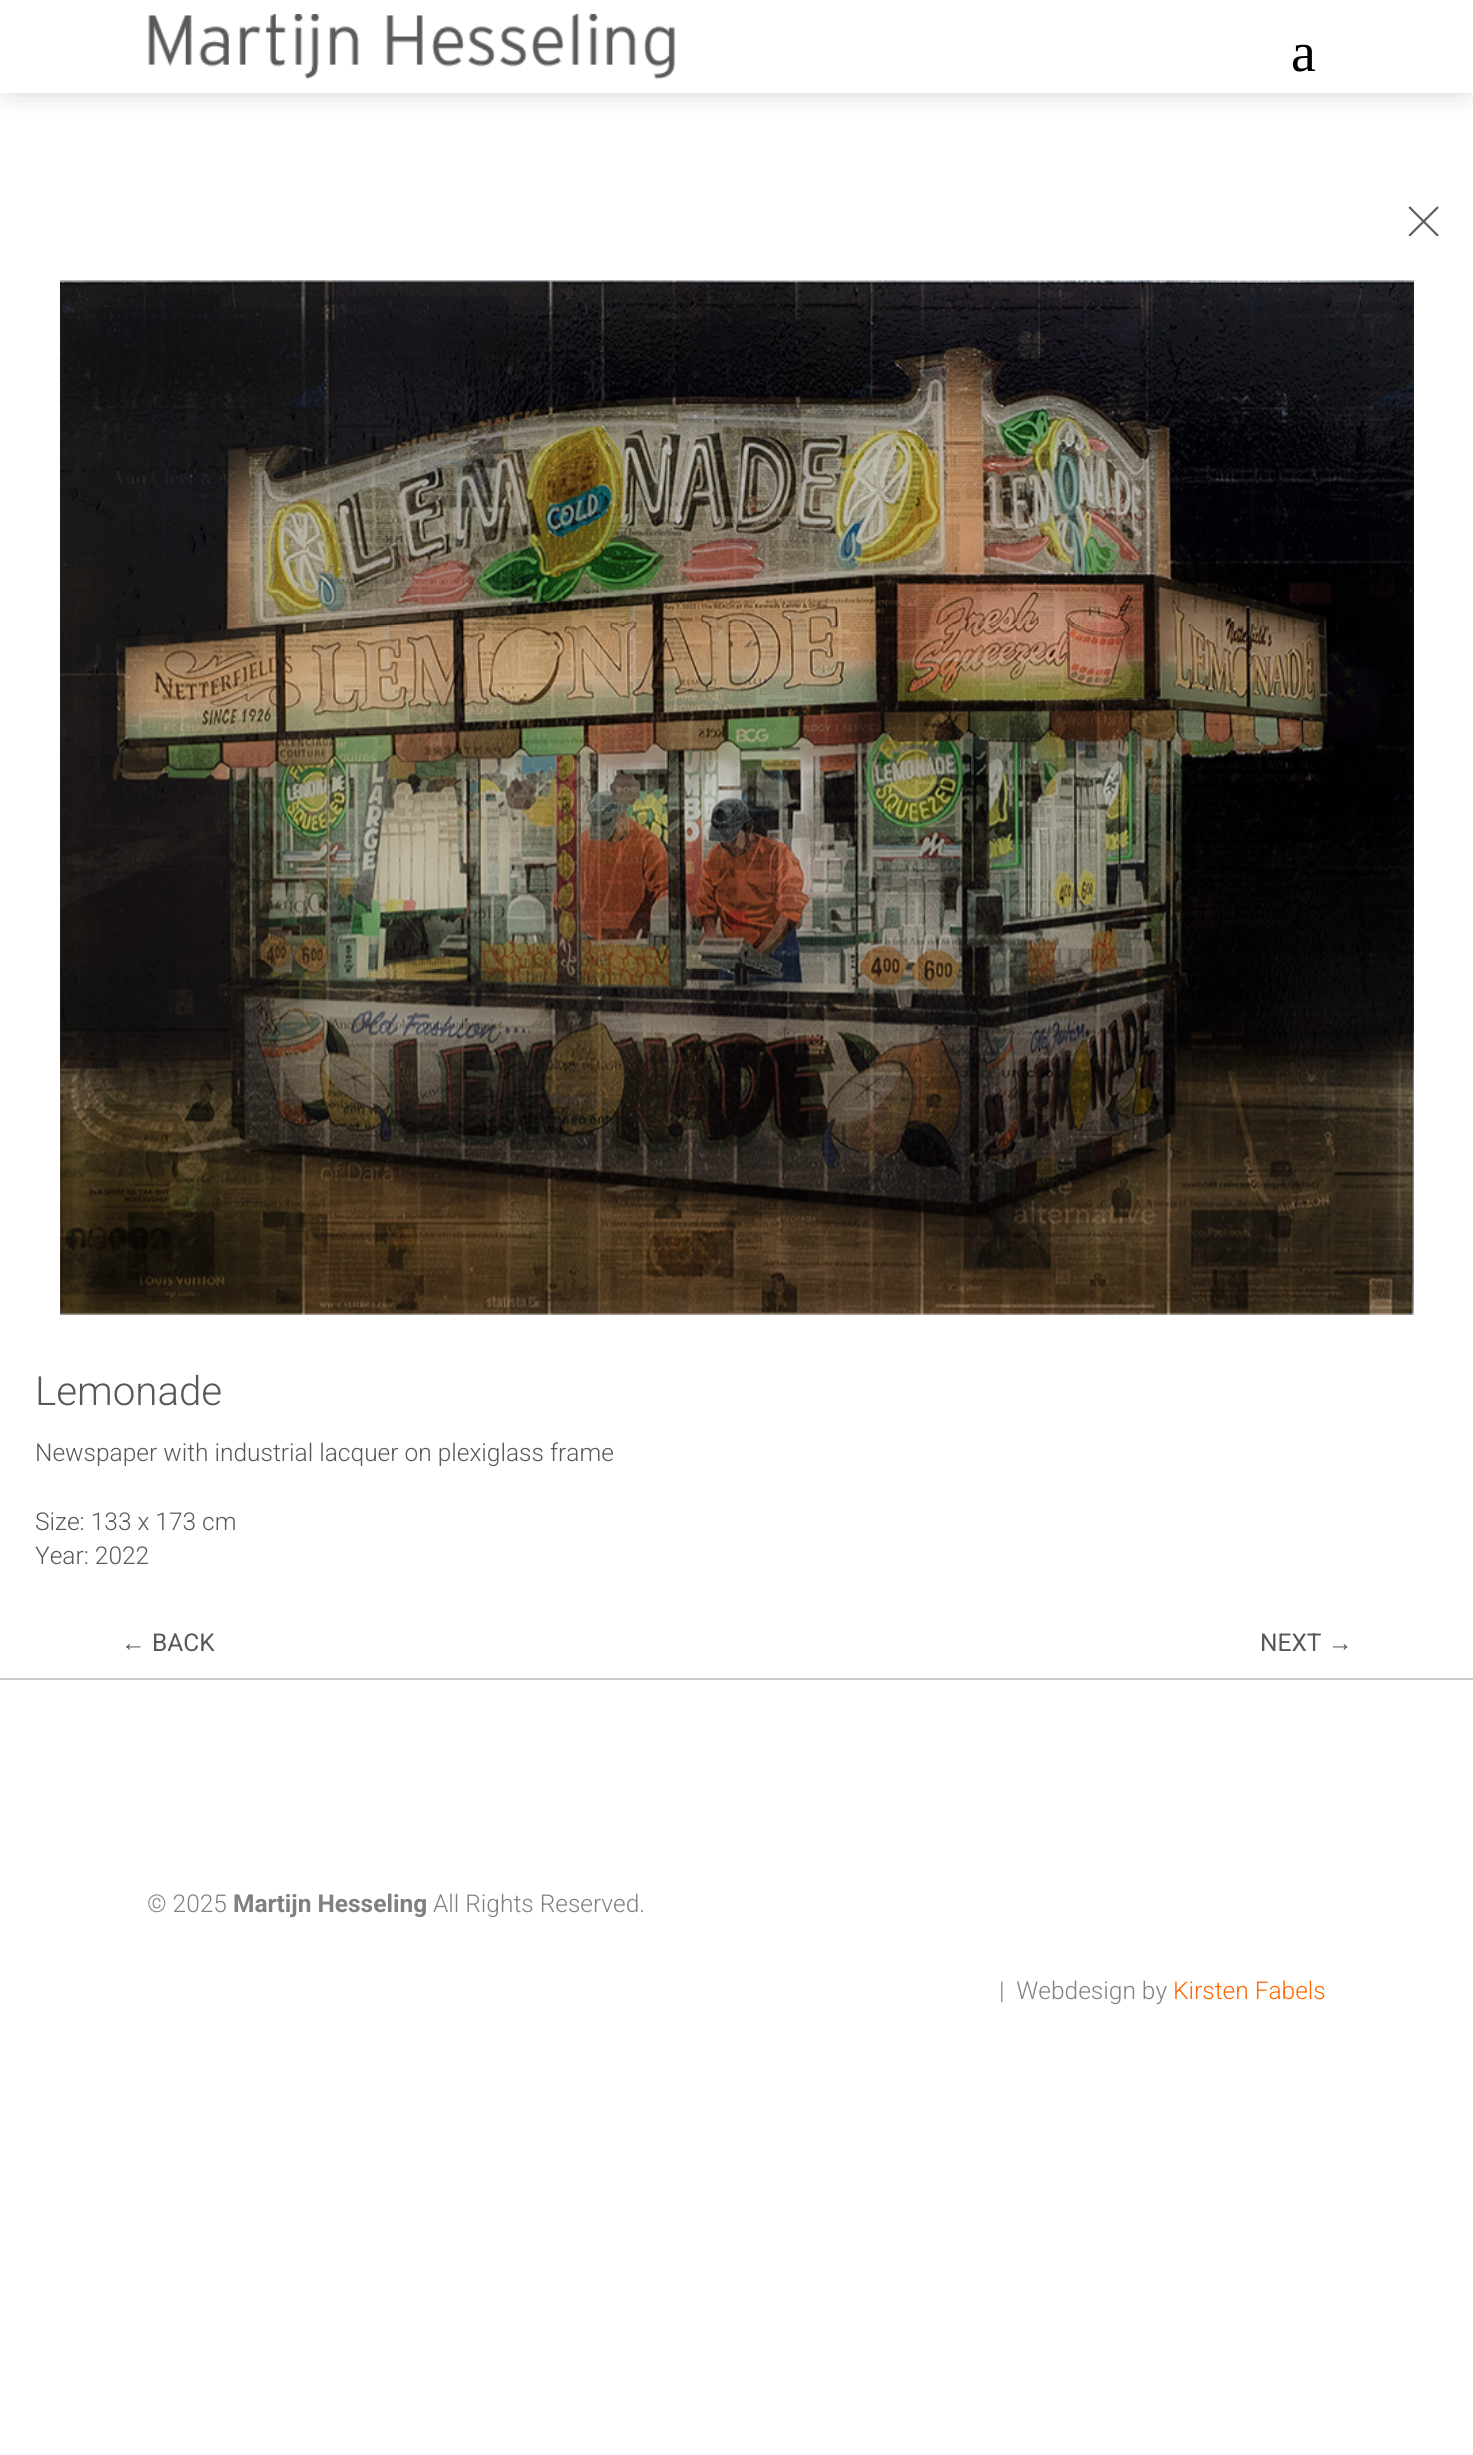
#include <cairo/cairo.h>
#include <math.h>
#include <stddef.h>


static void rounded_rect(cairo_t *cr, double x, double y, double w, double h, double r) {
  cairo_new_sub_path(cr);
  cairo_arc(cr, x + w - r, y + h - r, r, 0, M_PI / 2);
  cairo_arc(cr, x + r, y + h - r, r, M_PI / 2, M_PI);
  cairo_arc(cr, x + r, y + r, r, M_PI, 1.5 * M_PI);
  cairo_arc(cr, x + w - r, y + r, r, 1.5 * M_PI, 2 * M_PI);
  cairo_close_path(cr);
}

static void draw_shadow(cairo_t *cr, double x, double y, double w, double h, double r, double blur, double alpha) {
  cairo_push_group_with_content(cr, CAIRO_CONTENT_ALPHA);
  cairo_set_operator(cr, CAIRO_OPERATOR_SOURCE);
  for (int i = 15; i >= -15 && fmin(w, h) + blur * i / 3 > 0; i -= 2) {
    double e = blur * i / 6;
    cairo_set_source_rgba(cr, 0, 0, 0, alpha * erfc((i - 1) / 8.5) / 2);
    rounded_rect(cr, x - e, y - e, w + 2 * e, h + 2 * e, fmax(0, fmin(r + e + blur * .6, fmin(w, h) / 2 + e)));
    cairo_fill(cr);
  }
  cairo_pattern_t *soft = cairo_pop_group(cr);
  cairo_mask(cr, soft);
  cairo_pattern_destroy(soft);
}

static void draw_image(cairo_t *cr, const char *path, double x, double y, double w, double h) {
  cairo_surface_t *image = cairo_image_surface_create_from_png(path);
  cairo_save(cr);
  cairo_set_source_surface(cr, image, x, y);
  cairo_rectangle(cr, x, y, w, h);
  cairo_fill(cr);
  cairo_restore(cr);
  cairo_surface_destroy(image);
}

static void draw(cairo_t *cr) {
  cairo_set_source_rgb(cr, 1, 1, 1);
  cairo_paint(cr);
  cairo_set_source_rgb(cr, 0, 0, 0);
  draw_shadow(cr, 11, 12, 1452, 72, 0, 16, 0.3);
  cairo_set_source_rgb(cr, 1, 1, 1);
  cairo_rectangle(cr, 0, 0, 1473, 93);
  cairo_fill(cr);
  draw_image(cr, "images/1.png", 148, 14, 527, 65);
  draw_image(cr, "images/2.png", 1408, 206, 31, 31);
  draw_image(cr, "images/3.png", 60, 280, 1354, 1035);
  cairo_set_source_rgb(cr, 201 / 255.0, 201 / 255.0, 201 / 255.0);
  cairo_rectangle(cr, 0, 1678, 1473, 2);
  cairo_fill(cr);
  cairo_select_font_face(cr, "Liberation Serif", CAIRO_FONT_SLANT_NORMAL, CAIRO_FONT_WEIGHT_NORMAL);
  cairo_set_font_size(cr, 56);
  cairo_set_source_rgb(cr, 0, 0, 0);
  cairo_move_to(cr, 1291, 71);
  cairo_show_text(cr, "a");
  cairo_select_font_face(cr, "Roboto Light", CAIRO_FONT_SLANT_NORMAL, CAIRO_FONT_WEIGHT_NORMAL);
  cairo_set_font_size(cr, 40.25);
  cairo_set_source_rgb(cr, 88 / 255.0, 88 / 255.0, 88 / 255.0);
  cairo_move_to(cr, 35, 1405);
  cairo_show_text(cr, "Lemonade");
  cairo_set_font_size(cr, 24.5);
  cairo_move_to(cr, 35, 1461);
  cairo_show_text(cr, "Newspaper with industrial lacquer on plexiglass frame");
  cairo_move_to(cr, 35, 1530);
  cairo_show_text(cr, "Size: 133 x 173 cm");
  cairo_move_to(cr, 35, 1564);
  cairo_show_text(cr, "Year: 2022");
  cairo_select_font_face(cr, "Liberation Sans", CAIRO_FONT_SLANT_NORMAL, CAIRO_FONT_WEIGHT_NORMAL);
  cairo_move_to(cr, 121, 1651);
  cairo_show_text(cr, "←");
  cairo_select_font_face(cr, "Roboto", CAIRO_FONT_SLANT_NORMAL, CAIRO_FONT_WEIGHT_NORMAL);
  cairo_move_to(cr, 152, 1651);
  cairo_show_text(cr, "BACK");
  cairo_move_to(cr, 1260, 1651);
  cairo_show_text(cr, "NEXT");
  cairo_select_font_face(cr, "Liberation Sans", CAIRO_FONT_SLANT_NORMAL, CAIRO_FONT_WEIGHT_NORMAL);
  cairo_move_to(cr, 1328, 1651);
  cairo_show_text(cr, "→");
  cairo_select_font_face(cr, "Roboto Light", CAIRO_FONT_SLANT_NORMAL, CAIRO_FONT_WEIGHT_NORMAL);
  cairo_set_source_rgb(cr, 128 / 255.0, 128 / 255.0, 128 / 255.0);
  cairo_move_to(cr, 147, 1912);
  cairo_show_text(cr, "© 2025");
  cairo_select_font_face(cr, "Roboto", CAIRO_FONT_SLANT_NORMAL, CAIRO_FONT_WEIGHT_BOLD);
  cairo_move_to(cr, 233, 1912);
  cairo_show_text(cr, "Martijn Hesseling");
  cairo_select_font_face(cr, "Roboto Light", CAIRO_FONT_SLANT_NORMAL, CAIRO_FONT_WEIGHT_NORMAL);
  cairo_move_to(cr, 433, 1912);
  cairo_show_text(cr, "All Rights Reserved.");
  cairo_move_to(cr, 999, 1999);
  cairo_show_text(cr, "|  Webdesign by");
  cairo_set_source_rgb(cr, 1, 102 / 255.0, 0);
  cairo_move_to(cr, 1173, 1999);
  cairo_show_text(cr, "Kirsten Fabels");
}

int main(void) {
  cairo_surface_t *surface = cairo_image_surface_create(CAIRO_FORMAT_RGB24, 1473, 2455);
  cairo_t *cr = cairo_create(surface);
  cairo_font_options_t *options = cairo_font_options_create();
  cairo_font_options_set_hint_metrics(options, CAIRO_HINT_METRICS_OFF);
  cairo_font_options_set_hint_style(options, CAIRO_HINT_STYLE_NONE);
  cairo_set_font_options(cr, options);
  cairo_set_miter_limit(cr, 4);
  draw(cr);
  cairo_surface_write_to_png(surface, "out.png");
  cairo_font_options_destroy(options);
  cairo_destroy(cr);
  cairo_surface_destroy(surface);
  return 0;
}
